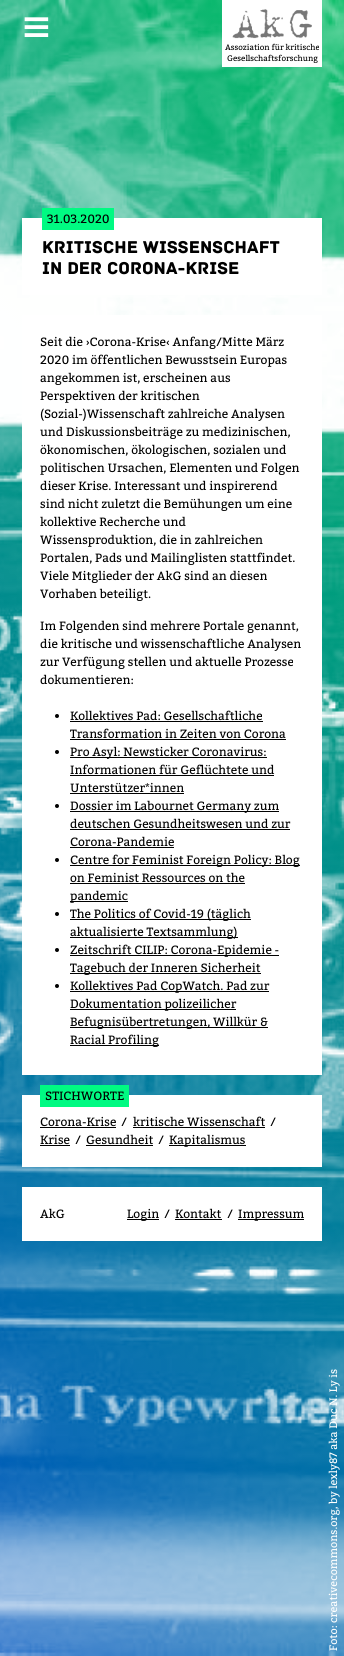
#include <cairo/cairo.h>
#include <math.h>
#include <stddef.h>


static void draw_image(cairo_t *cr, const char *path, double x, double y, double w, double h) {
  cairo_surface_t *image = cairo_image_surface_create_from_png(path);
  cairo_save(cr);
  cairo_set_source_surface(cr, image, x, y);
  cairo_rectangle(cr, x, y, w, h);
  cairo_fill(cr);
  cairo_restore(cr);
  cairo_surface_destroy(image);
}

static void draw(cairo_t *cr) {
  cairo_set_source_rgb(cr, 1, 1, 1);
  cairo_paint(cr);
  draw_image(cr, "images/2.png", 0, 0, 344, 1656);
  draw_image(cr, "images/1.png", 222, 0, 100, 67);
  cairo_set_source_rgb(cr, 1, 1, 1);
  cairo_rectangle(cr, 22, 218, 300, 77);
  cairo_fill(cr);
  cairo_set_source_rgb(cr, 0, 250 / 255.0, 130 / 255.0);
  cairo_rectangle(cr, 42, 208, 72, 22);
  cairo_fill(cr);
  cairo_set_source_rgb(cr, 1, 1, 1);
  cairo_rectangle(cr, 22, 315, 300, 760);
  cairo_fill(cr);
  cairo_set_source_rgb(cr, 0, 0, 0);
  cairo_arc(cr, 57, 716, 2, 0, 2 * M_PI);
  cairo_fill(cr);
  cairo_rectangle(cr, 70, 721, 193, 1);
  cairo_fill(cr);
  cairo_rectangle(cr, 70, 739, 216, 1);
  cairo_fill(cr);
  cairo_arc(cr, 57, 752, 2, 0, 2 * M_PI);
  cairo_fill(cr);
  cairo_rectangle(cr, 70, 757, 197, 1);
  cairo_fill(cr);
  cairo_rectangle(cr, 70, 775, 204, 1);
  cairo_fill(cr);
  cairo_rectangle(cr, 70, 793, 114, 1);
  cairo_fill(cr);
  cairo_arc(cr, 57, 806, 2, 0, 2 * M_PI);
  cairo_fill(cr);
  cairo_rectangle(cr, 70, 811, 209, 1);
  cairo_fill(cr);
  cairo_rectangle(cr, 70, 829, 220, 1);
  cairo_fill(cr);
  cairo_rectangle(cr, 70, 847, 104, 1);
  cairo_fill(cr);
  cairo_arc(cr, 57, 860, 2, 0, 2 * M_PI);
  cairo_fill(cr);
  cairo_rectangle(cr, 70, 865, 230, 1);
  cairo_fill(cr);
  cairo_rectangle(cr, 70, 883, 175, 1);
  cairo_fill(cr);
  cairo_rectangle(cr, 70, 901, 58, 1);
  cairo_fill(cr);
  cairo_arc(cr, 57, 914, 2, 0, 2 * M_PI);
  cairo_fill(cr);
  cairo_rectangle(cr, 70, 919, 181, 1);
  cairo_fill(cr);
  cairo_rectangle(cr, 70, 937, 168, 1);
  cairo_fill(cr);
  cairo_arc(cr, 57, 950, 2, 0, 2 * M_PI);
  cairo_fill(cr);
  cairo_rectangle(cr, 70, 955, 209, 1);
  cairo_fill(cr);
  cairo_rectangle(cr, 70, 973, 191, 1);
  cairo_fill(cr);
  cairo_arc(cr, 57, 986, 2, 0, 2 * M_PI);
  cairo_fill(cr);
  cairo_rectangle(cr, 70, 991, 199, 1);
  cairo_fill(cr);
  cairo_rectangle(cr, 70, 1009, 166, 1);
  cairo_fill(cr);
  cairo_rectangle(cr, 70, 1027, 198, 1);
  cairo_fill(cr);
  cairo_rectangle(cr, 70, 1045, 89, 1);
  cairo_fill(cr);
  cairo_set_source_rgb(cr, 1, 1, 1);
  cairo_rectangle(cr, 22, 1095, 300, 72);
  cairo_fill(cr);
  cairo_set_source_rgb(cr, 0, 250 / 255.0, 130 / 255.0);
  cairo_rectangle(cr, 40, 1085, 89, 22);
  cairo_fill(cr);
  cairo_set_source_rgb(cr, 0, 0, 0);
  cairo_rectangle(cr, 40, 1127, 76, 1);
  cairo_fill(cr);
  cairo_rectangle(cr, 133, 1127, 132, 1);
  cairo_fill(cr);
  cairo_rectangle(cr, 40, 1145, 30, 1);
  cairo_fill(cr);
  cairo_rectangle(cr, 86, 1145, 67, 1);
  cairo_fill(cr);
  cairo_rectangle(cr, 169, 1145, 77, 1);
  cairo_fill(cr);
  cairo_set_source_rgb(cr, 1, 1, 1);
  cairo_rectangle(cr, 22, 1187, 300, 54);
  cairo_fill(cr);
  cairo_set_source_rgb(cr, 0, 0, 0);
  cairo_rectangle(cr, 127, 1219, 32, 1);
  cairo_fill(cr);
  cairo_rectangle(cr, 175, 1219, 47, 1);
  cairo_fill(cr);
  cairo_rectangle(cr, 238, 1219, 66, 1);
  cairo_fill(cr);
  cairo_select_font_face(cr, "Bitter", CAIRO_FONT_SLANT_NORMAL, CAIRO_FONT_WEIGHT_NORMAL);
  cairo_set_font_size(cr, 48);
  cairo_set_source_rgb(cr, 1, 1, 1);
  cairo_move_to(cr, 22, 37);
  cairo_show_text(cr, "≡");
  cairo_set_font_size(cr, 8);
  cairo_set_source_rgb(cr, 0, 0, 0);
  cairo_move_to(cr, 225, 50);
  cairo_show_text(cr, "Assoziation für kritische");
  cairo_move_to(cr, 227, 61);
  cairo_show_text(cr, "Gesellschaftsforschung");
  cairo_set_font_size(cr, 12);
  cairo_move_to(cr, 47, 223);
  cairo_show_text(cr, "31.03.2020");
  cairo_select_font_face(cr, "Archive", CAIRO_FONT_SLANT_NORMAL, CAIRO_FONT_WEIGHT_NORMAL);
  cairo_set_font_size(cr, 18);
  cairo_move_to(cr, 42, 253);
  cairo_show_text(cr, "KRITISCHE WISSENSCHAFT");
  cairo_move_to(cr, 42, 274);
  cairo_show_text(cr, "IN DER CORONA-KRISE");
  cairo_select_font_face(cr, "Bitter", CAIRO_FONT_SLANT_NORMAL, CAIRO_FONT_WEIGHT_NORMAL);
  cairo_set_font_size(cr, 12);
  cairo_move_to(cr, 40, 346);
  cairo_show_text(cr, "Seit die ›Corona-Krise‹ Anfang/Mitte März");
  cairo_move_to(cr, 40, 364);
  cairo_show_text(cr, "2020 im öffentlichen Bewusstsein Europas");
  cairo_move_to(cr, 40, 382);
  cairo_show_text(cr, "angekommen ist, erscheinen aus");
  cairo_move_to(cr, 40, 400);
  cairo_show_text(cr, "Perspektiven der kritischen");
  cairo_move_to(cr, 40, 418);
  cairo_show_text(cr, "(Sozial-)Wissenschaft zahlreiche Analysen");
  cairo_move_to(cr, 40, 436);
  cairo_show_text(cr, "und Diskussionsbeiträge zu medizinischen,");
  cairo_move_to(cr, 40, 454);
  cairo_show_text(cr, "ökonomischen, ökologischen, sozialen und");
  cairo_move_to(cr, 40, 472);
  cairo_show_text(cr, "politischen Ursachen, Elementen und Folgen");
  cairo_move_to(cr, 40, 490);
  cairo_show_text(cr, "dieser Krise. Interessant und inspirerend");
  cairo_move_to(cr, 40, 508);
  cairo_show_text(cr, "sind nicht zuletzt die Bemühungen um eine");
  cairo_move_to(cr, 40, 526);
  cairo_show_text(cr, "kollektive Recherche und");
  cairo_move_to(cr, 40, 544);
  cairo_show_text(cr, "Wissensproduktion, die in zahlreichen");
  cairo_move_to(cr, 40, 562);
  cairo_show_text(cr, "Portalen, Pads und Mailinglisten stattfindet.");
  cairo_move_to(cr, 40, 580);
  cairo_show_text(cr, "Viele Mitglieder der AkG sind an diesen");
  cairo_move_to(cr, 40, 598);
  cairo_show_text(cr, "Vorhaben beteiligt.");
  cairo_move_to(cr, 40, 630);
  cairo_show_text(cr, "Im Folgenden sind mehrere Portale genannt,");
  cairo_move_to(cr, 40, 648);
  cairo_show_text(cr, "die kritische und wissenschaftliche Analysen");
  cairo_move_to(cr, 40, 666);
  cairo_show_text(cr, "zur Verfügung stellen und aktuelle Prozesse");
  cairo_move_to(cr, 40, 684);
  cairo_show_text(cr, "dokumentieren:");
  cairo_move_to(cr, 70, 720);
  cairo_show_text(cr, "Kollektives Pad: Gesellschaftliche");
  cairo_move_to(cr, 70, 738);
  cairo_show_text(cr, "Transformation in Zeiten von Corona");
  cairo_move_to(cr, 70, 756);
  cairo_show_text(cr, "Pro Asyl: Newsticker Coronavirus:");
  cairo_move_to(cr, 70, 774);
  cairo_show_text(cr, "Informationen für Geflüchtete und");
  cairo_move_to(cr, 70, 792);
  cairo_show_text(cr, "Unterstützer*innen");
  cairo_move_to(cr, 70, 810);
  cairo_show_text(cr, "Dossier im Labournet Germany zum");
  cairo_move_to(cr, 70, 828);
  cairo_show_text(cr, "deutschen Gesundheitswesen und zur");
  cairo_move_to(cr, 70, 846);
  cairo_show_text(cr, "Corona-Pandemie");
  cairo_move_to(cr, 70, 864);
  cairo_show_text(cr, "Centre for Feminist Foreign Policy: Blog");
  cairo_move_to(cr, 70, 882);
  cairo_show_text(cr, "on Feminist Ressources on the");
  cairo_move_to(cr, 70, 900);
  cairo_show_text(cr, "pandemic");
  cairo_move_to(cr, 70, 918);
  cairo_show_text(cr, "The Politics of Covid-19 (täglich");
  cairo_move_to(cr, 70, 936);
  cairo_show_text(cr, "aktualisierte Textsammlung)");
  cairo_move_to(cr, 70, 954);
  cairo_show_text(cr, "Zeitschrift CILIP: Corona-Epidemie -");
  cairo_move_to(cr, 70, 972);
  cairo_show_text(cr, "Tagebuch der Inneren Sicherheit");
  cairo_move_to(cr, 70, 990);
  cairo_show_text(cr, "Kollektives Pad CopWatch. Pad zur");
  cairo_move_to(cr, 70, 1008);
  cairo_show_text(cr, "Dokumentation polizeilicher");
  cairo_move_to(cr, 70, 1026);
  cairo_show_text(cr, "Befugnisübertretungen, Willkür &");
  cairo_move_to(cr, 70, 1044);
  cairo_show_text(cr, "Racial Profiling");
  cairo_move_to(cr, 45, 1100);
  cairo_show_text(cr, "STICHWORTE");
  cairo_move_to(cr, 40, 1126);
  cairo_show_text(cr, "Corona-Krise");
  cairo_move_to(cr, 121, 1126);
  cairo_show_text(cr, "/");
  cairo_move_to(cr, 133, 1126);
  cairo_show_text(cr, "kritische Wissenschaft");
  cairo_move_to(cr, 270, 1126);
  cairo_show_text(cr, "/");
  cairo_move_to(cr, 40, 1144);
  cairo_show_text(cr, "Krise");
  cairo_move_to(cr, 75, 1144);
  cairo_show_text(cr, "/");
  cairo_move_to(cr, 86, 1144);
  cairo_show_text(cr, "Gesundheit");
  cairo_move_to(cr, 158, 1144);
  cairo_show_text(cr, "/");
  cairo_move_to(cr, 169, 1144);
  cairo_show_text(cr, "Kapitalismus");
  cairo_move_to(cr, 40, 1218);
  cairo_show_text(cr, "AkG");
  cairo_move_to(cr, 127, 1218);
  cairo_show_text(cr, "Login");
  cairo_move_to(cr, 164, 1218);
  cairo_show_text(cr, "/");
  cairo_move_to(cr, 175, 1218);
  cairo_show_text(cr, "Kontakt");
  cairo_move_to(cr, 227, 1218);
  cairo_show_text(cr, "/");
  cairo_move_to(cr, 238, 1218);
  cairo_show_text(cr, "Impressum");
  cairo_set_font_size(cr, 10.8);
  cairo_set_source_rgb(cr, 1, 1, 1);
  cairo_save(cr);
  cairo_translate(cr, 337, 1623);
  cairo_rotate(cr, -90 * M_PI / 180);
  cairo_move_to(cr, 0, 0);
  cairo_show_text(cr, "creativecommons.org, by lexly87 aka Duc N. Ly is");
  cairo_restore(cr);
  cairo_save(cr);
  cairo_translate(cr, 337, 1651);
  cairo_rotate(cr, -90 * M_PI / 180);
  cairo_move_to(cr, 0, 0);
  cairo_show_text(cr, "Foto:");
  cairo_restore(cr);
}

int main(void) {
  cairo_surface_t *surface = cairo_image_surface_create(CAIRO_FORMAT_RGB24, 344, 1656);
  cairo_t *cr = cairo_create(surface);
  cairo_font_options_t *options = cairo_font_options_create();
  cairo_font_options_set_hint_metrics(options, CAIRO_HINT_METRICS_OFF);
  cairo_font_options_set_hint_style(options, CAIRO_HINT_STYLE_NONE);
  cairo_set_font_options(cr, options);
  cairo_set_miter_limit(cr, 4);
  draw(cr);
  cairo_surface_write_to_png(surface, "out.png");
  cairo_font_options_destroy(options);
  cairo_destroy(cr);
  cairo_surface_destroy(surface);
  return 0;
}
